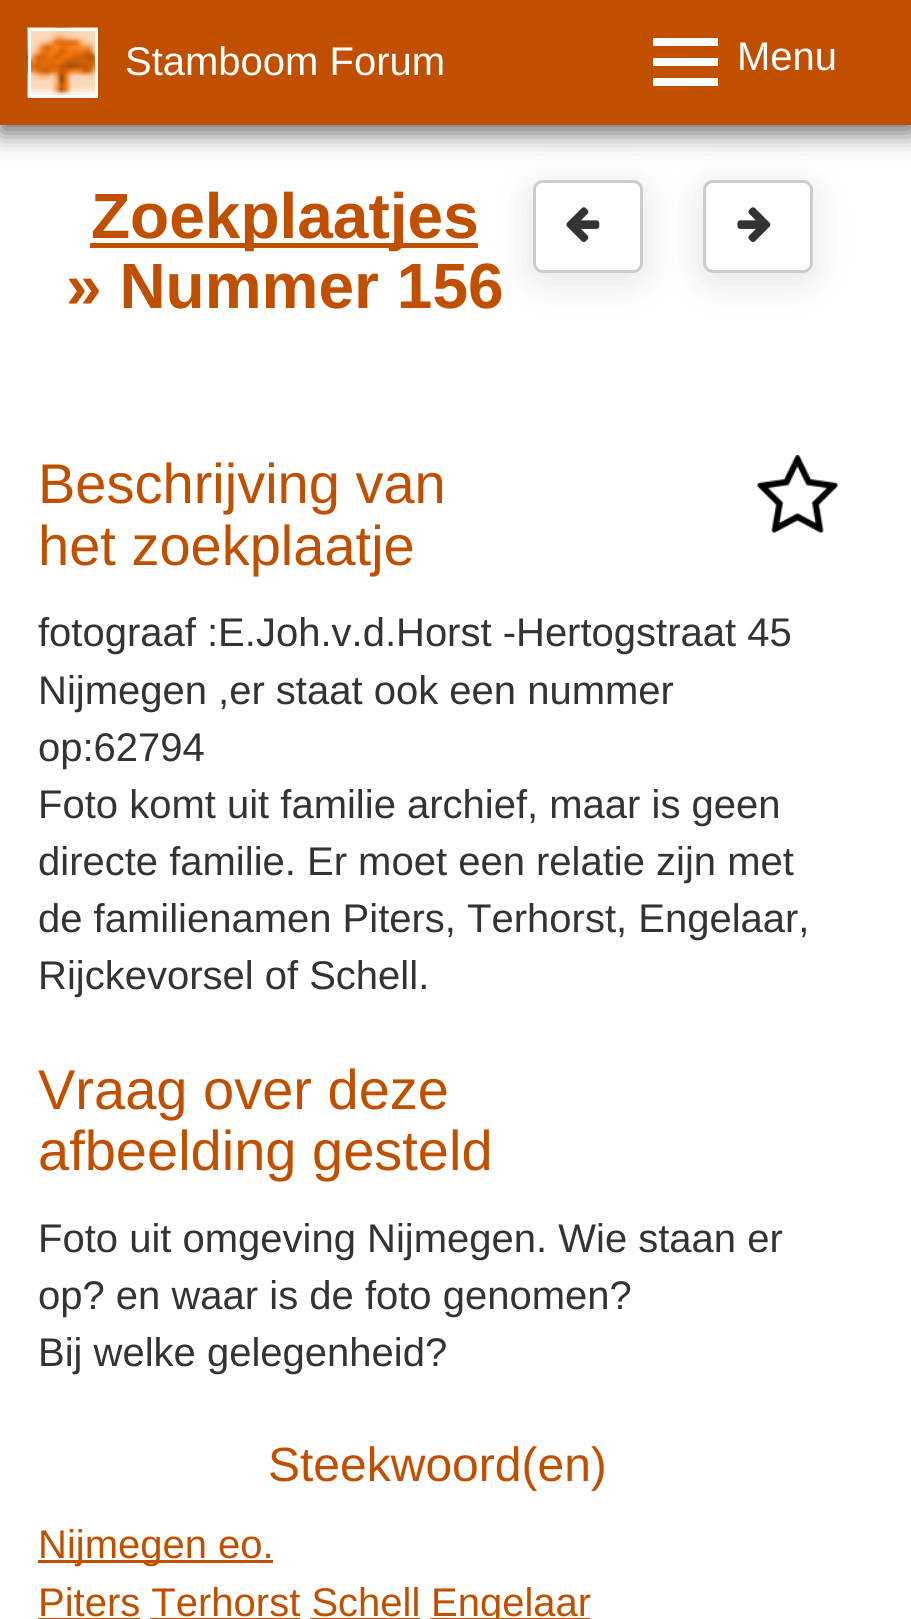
#include <cairo/cairo.h>
#include <math.h>
#include <stddef.h>


static void rounded_rect(cairo_t *cr, double x, double y, double w, double h, double r) {
  cairo_new_sub_path(cr);
  cairo_arc(cr, x + w - r, y + h - r, r, 0, M_PI / 2);
  cairo_arc(cr, x + r, y + h - r, r, M_PI / 2, M_PI);
  cairo_arc(cr, x + r, y + r, r, M_PI, 1.5 * M_PI);
  cairo_arc(cr, x + w - r, y + r, r, 1.5 * M_PI, 2 * M_PI);
  cairo_close_path(cr);
}

static void draw_shadow(cairo_t *cr, double x, double y, double w, double h, double r, double blur, double alpha) {
  cairo_push_group_with_content(cr, CAIRO_CONTENT_ALPHA);
  cairo_set_operator(cr, CAIRO_OPERATOR_SOURCE);
  for (int i = 15; i >= -15 && fmin(w, h) + blur * i / 3 > 0; i -= 2) {
    double e = blur * i / 6;
    cairo_set_source_rgba(cr, 0, 0, 0, alpha * erfc((i - 1) / 8.5) / 2);
    rounded_rect(cr, x - e, y - e, w + 2 * e, h + 2 * e, fmax(0, fmin(r + e + blur * .6, fmin(w, h) / 2 + e)));
    cairo_fill(cr);
  }
  cairo_pattern_t *soft = cairo_pop_group(cr);
  cairo_mask(cr, soft);
  cairo_pattern_destroy(soft);
}

static void draw_image(cairo_t *cr, const char *path, double x, double y, double w, double h) {
  cairo_surface_t *image = cairo_image_surface_create_from_png(path);
  cairo_save(cr);
  cairo_set_source_surface(cr, image, x, y);
  cairo_rectangle(cr, x, y, w, h);
  cairo_fill(cr);
  cairo_restore(cr);
  cairo_surface_destroy(image);
}

static void draw(cairo_t *cr) {
  cairo_set_source_rgb(cr, 1, 1, 1);
  cairo_paint(cr);
  cairo_set_source_rgb(cr, 50 / 255.0, 50 / 255.0, 50 / 255.0);
  draw_shadow(cr, 0, 8, 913, 125, 0, 12.5, 0.73);
  cairo_set_source_rgb(cr, 192 / 255.0, 80 / 255.0, 0);
  cairo_rectangle(cr, 0, 0, 911, 125);
  cairo_fill(cr);
  draw_image(cr, "images/1.png", 27, 27, 71, 71);
  cairo_rectangle(cr, 29.5, 29.5, 67, 67);
  cairo_set_source_rgb(cr, 1, 1, 1);
  cairo_set_line_width(cr, 3);
  cairo_stroke(cr);
  cairo_rectangle(cr, 653, 78, 65, 8);
  cairo_fill(cr);
  cairo_rectangle(cr, 653, 38, 65, 8);
  cairo_fill(cr);
  cairo_rectangle(cr, 653, 58, 65, 8);
  cairo_fill(cr);
  cairo_set_source_rgb(cr, 0, 0, 0);
  draw_shadow(cr, 530, 185, 115, 98, 13, 19, 0.1);
  cairo_set_source_rgb(cr, 192 / 255.0, 80 / 255.0, 0);
  cairo_rectangle(cr, 90, 243, 388, 5);
  cairo_fill(cr);
  cairo_set_source_rgb(cr, 1, 1, 1);
  rounded_rect(cr, 534.5, 181.5, 107, 90, 8.5);
  cairo_fill_preserve(cr);
  cairo_set_source_rgb(cr, 204 / 255.0, 204 / 255.0, 204 / 255.0);
  cairo_stroke(cr);
  draw_image(cr, "images/2.png", 566, 207, 34, 35);
  cairo_set_source_rgb(cr, 0, 0, 0);
  draw_shadow(cr, 700, 185, 115, 98, 13, 19, 0.1);
  cairo_set_source_rgb(cr, 1, 1, 1);
  rounded_rect(cr, 704.5, 181.5, 107, 90, 8.5);
  cairo_fill_preserve(cr);
  cairo_set_source_rgb(cr, 204 / 255.0, 204 / 255.0, 204 / 255.0);
  cairo_stroke(cr);
  draw_image(cr, "images/3.png", 737, 207, 34, 35);
  draw_image(cr, "images/4.png", 757, 455, 81, 78);
  cairo_set_source_rgb(cr, 192 / 255.0, 80 / 255.0, 0);
  cairo_rectangle(cr, 38, 1560, 235, 3);
  cairo_fill(cr);
  cairo_rectangle(cr, 38, 1618, 102, 1);
  cairo_fill(cr);
  cairo_rectangle(cr, 430, 1618, 160, 1);
  cairo_fill(cr);
  cairo_rectangle(cr, 150, 1618, 150, 1);
  cairo_fill(cr);
  cairo_rectangle(cr, 310, 1618, 110, 1);
  cairo_fill(cr);
  cairo_select_font_face(cr, "Liberation Sans", CAIRO_FONT_SLANT_NORMAL, CAIRO_FONT_WEIGHT_NORMAL);
  cairo_set_font_size(cr, 40);
  cairo_set_source_rgb(cr, 1, 1, 1);
  cairo_move_to(cr, 125, 75);
  cairo_show_text(cr, "Stamboom Forum");
  cairo_move_to(cr, 737, 70);
  cairo_show_text(cr, "Menu");
  cairo_select_font_face(cr, "Liberation Sans", CAIRO_FONT_SLANT_NORMAL, CAIRO_FONT_WEIGHT_BOLD);
  cairo_set_font_size(cr, 64);
  cairo_set_source_rgb(cr, 192 / 255.0, 80 / 255.0, 0);
  cairo_move_to(cr, 91, 238);
  cairo_show_text(cr, "Zoekplaatjes");
  cairo_move_to(cr, 66, 308);
  cairo_show_text(cr, "» Nummer 156");
  cairo_select_font_face(cr, "Liberation Sans", CAIRO_FONT_SLANT_NORMAL, CAIRO_FONT_WEIGHT_NORMAL);
  cairo_set_font_size(cr, 56);
  cairo_move_to(cr, 38, 503);
  cairo_show_text(cr, "Beschrijving van");
  cairo_move_to(cr, 38, 565);
  cairo_show_text(cr, "het zoekplaatje");
  cairo_set_font_size(cr, 40);
  cairo_set_source_rgb(cr, 51 / 255.0, 51 / 255.0, 51 / 255.0);
  cairo_move_to(cr, 38, 646);
  cairo_show_text(cr, "fotograaf :E.Joh.v.d.Horst -Hertogstraat 45");
  cairo_move_to(cr, 38, 704);
  cairo_show_text(cr, "Nijmegen ,er staat ook een nummer");
  cairo_move_to(cr, 38, 761);
  cairo_show_text(cr, "op:62794");
  cairo_move_to(cr, 38, 818);
  cairo_show_text(cr, "Foto komt uit familie archief, maar is geen");
  cairo_move_to(cr, 38, 875);
  cairo_show_text(cr, "directe familie. Er moet een relatie zijn met");
  cairo_move_to(cr, 38, 932);
  cairo_show_text(cr, "de familienamen Piters, Terhorst, Engelaar,");
  cairo_move_to(cr, 38, 989);
  cairo_show_text(cr, "Rijckevorsel of Schell.");
  cairo_set_font_size(cr, 56);
  cairo_set_source_rgb(cr, 192 / 255.0, 80 / 255.0, 0);
  cairo_move_to(cr, 38, 1109);
  cairo_show_text(cr, "Vraag over deze");
  cairo_move_to(cr, 38, 1170);
  cairo_show_text(cr, "afbeelding gesteld");
  cairo_set_font_size(cr, 40);
  cairo_set_source_rgb(cr, 51 / 255.0, 51 / 255.0, 51 / 255.0);
  cairo_move_to(cr, 38, 1252);
  cairo_show_text(cr, "Foto uit omgeving Nijmegen. Wie staan er");
  cairo_move_to(cr, 38, 1309);
  cairo_show_text(cr, "op? en waar is de foto genomen?");
  cairo_move_to(cr, 38, 1366);
  cairo_show_text(cr, "Bij welke gelegenheid?");
  cairo_set_font_size(cr, 48);
  cairo_set_source_rgb(cr, 192 / 255.0, 80 / 255.0, 0);
  cairo_move_to(cr, 268, 1481);
  cairo_show_text(cr, "Steekwoord(en)");
  cairo_set_font_size(cr, 40);
  cairo_move_to(cr, 38, 1558);
  cairo_show_text(cr, "Nijmegen eo.");
  cairo_move_to(cr, 38, 1616);
  cairo_show_text(cr, "Piters Terhorst Schell");
  cairo_move_to(cr, 431, 1616);
  cairo_show_text(cr, "Engelaar");
}

int main(void) {
  cairo_surface_t *surface = cairo_image_surface_create(CAIRO_FORMAT_RGB24, 911, 1619);
  cairo_t *cr = cairo_create(surface);
  cairo_font_options_t *options = cairo_font_options_create();
  cairo_font_options_set_hint_metrics(options, CAIRO_HINT_METRICS_OFF);
  cairo_font_options_set_hint_style(options, CAIRO_HINT_STYLE_NONE);
  cairo_set_font_options(cr, options);
  cairo_set_miter_limit(cr, 4);
  draw(cr);
  cairo_surface_write_to_png(surface, "out.png");
  cairo_font_options_destroy(options);
  cairo_destroy(cr);
  cairo_surface_destroy(surface);
  return 0;
}
